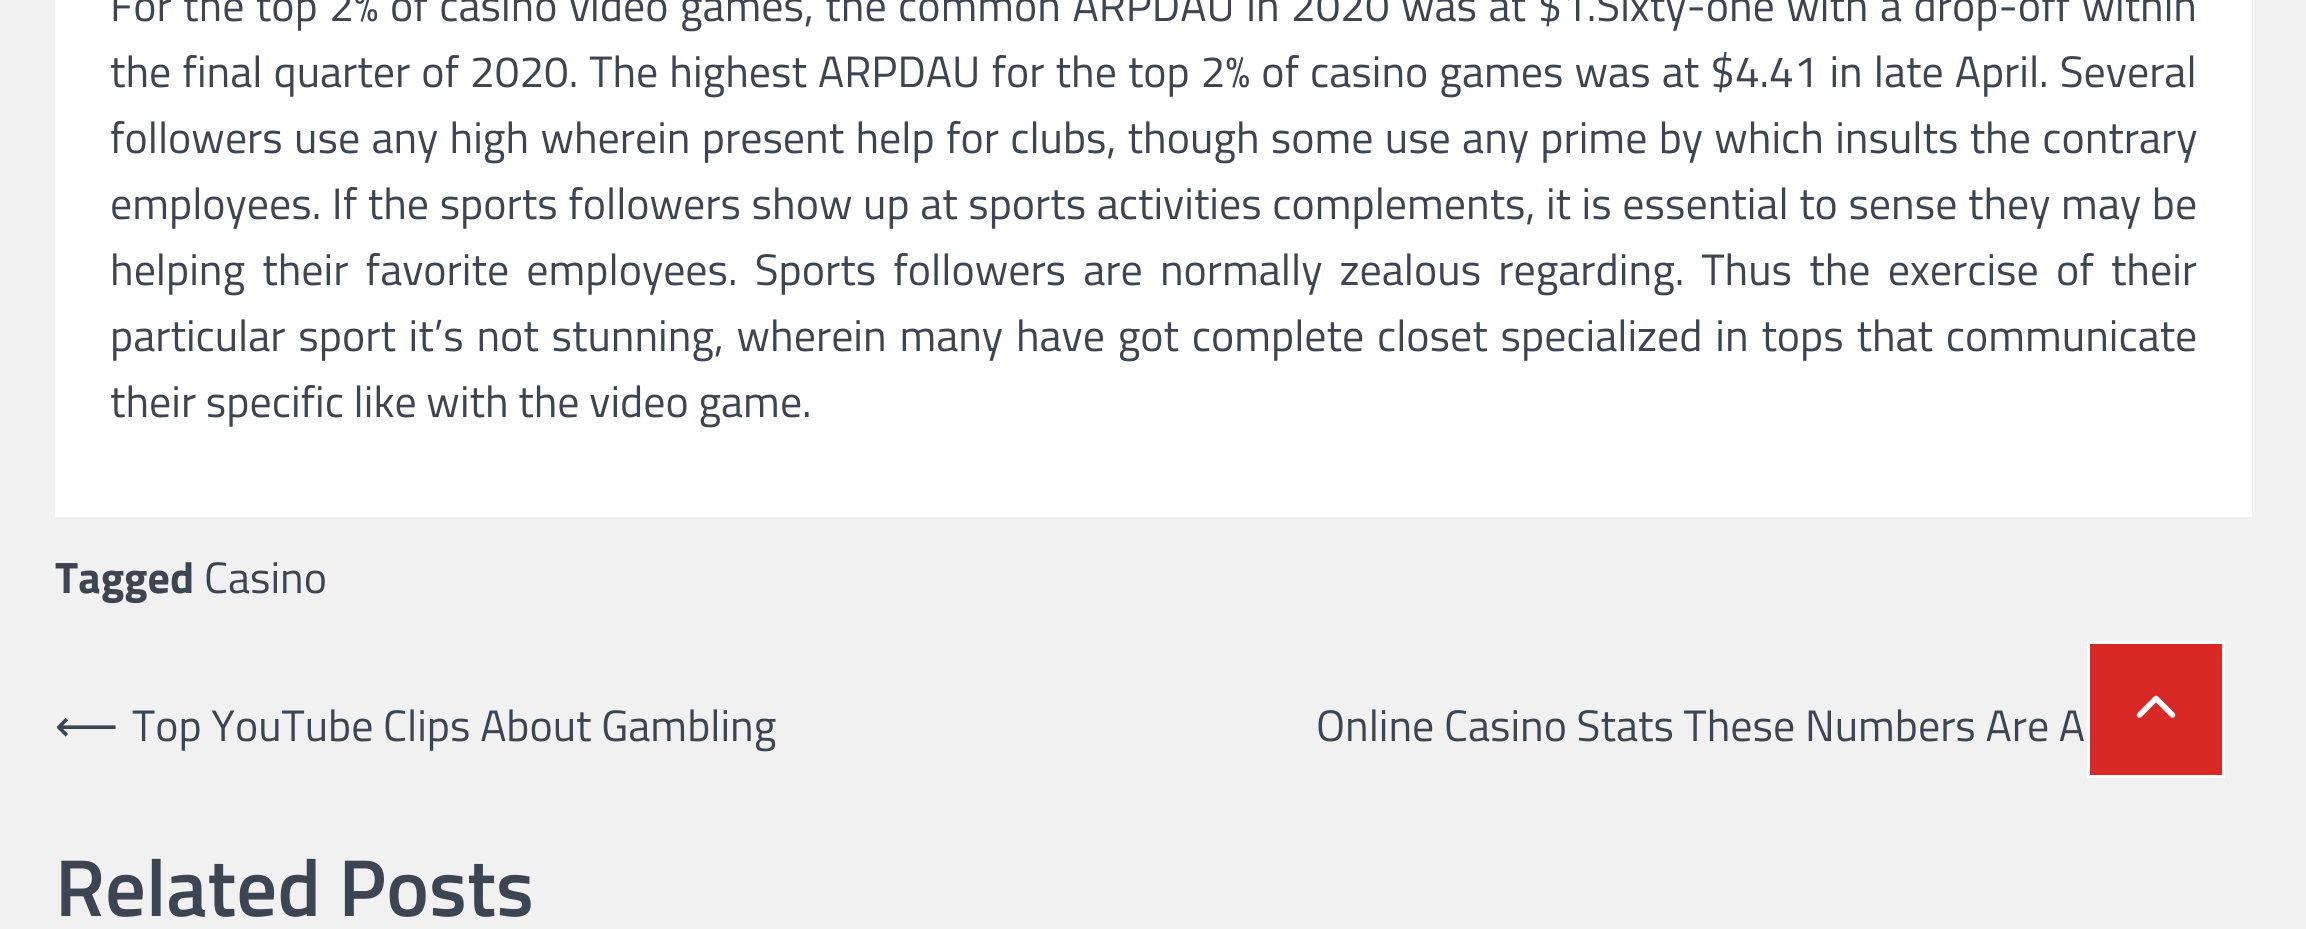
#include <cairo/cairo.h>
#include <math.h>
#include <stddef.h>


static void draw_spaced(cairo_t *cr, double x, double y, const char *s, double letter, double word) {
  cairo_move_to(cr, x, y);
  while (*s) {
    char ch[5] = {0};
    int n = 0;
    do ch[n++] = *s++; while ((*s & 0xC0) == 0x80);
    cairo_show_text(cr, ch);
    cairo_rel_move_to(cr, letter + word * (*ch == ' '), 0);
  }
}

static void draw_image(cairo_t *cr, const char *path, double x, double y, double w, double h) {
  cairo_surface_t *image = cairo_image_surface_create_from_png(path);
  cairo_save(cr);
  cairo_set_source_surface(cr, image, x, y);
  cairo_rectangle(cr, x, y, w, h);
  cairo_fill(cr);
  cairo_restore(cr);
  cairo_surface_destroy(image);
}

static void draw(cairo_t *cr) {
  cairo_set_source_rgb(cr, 241 / 255.0, 241 / 255.0, 241 / 255.0);
  cairo_paint(cr);
  cairo_set_source_rgb(cr, 1, 1, 1);
  cairo_rectangle(cr, 55, 0, 2197, 517);
  cairo_fill(cr);
  cairo_set_source_rgb(cr, 216 / 255.0, 41 / 255.0, 38 / 255.0);
  cairo_rectangle(cr, 2088.5, 642.5, 135, 134);
  cairo_fill_preserve(cr);
  cairo_set_source_rgb(cr, 1, 1, 1);
  cairo_set_line_width(cr, 3);
  cairo_stroke(cr);
  draw_image(cr, "images/1.png", 2136, 695, 40, 23);
  cairo_select_font_face(cr, "Titillium Web", CAIRO_FONT_SLANT_NORMAL, CAIRO_FONT_WEIGHT_NORMAL);
  cairo_set_font_size(cr, 44);
  cairo_set_source_rgb(cr, 61 / 255.0, 68 / 255.0, 82 / 255.0);
  draw_spaced(cr, 110, 21, "For the top 2% of casino video games, the common ARPDAU in 2020 was at $1.Sixty-one with a drop-off within", 0, 1.8);
  draw_spaced(cr, 110, 87, "the final quarter of 2020. The highest ARPDAU for the top 2% of casino games was at $4.41 in late April. Several", 0, 1.4);
  draw_spaced(cr, 110, 153, "followers use any high wherein present help for clubs, though some use any prime by which insults the contrary", 0, 1.6);
  draw_spaced(cr, 110, 219, "employees. If the sports followers show up at sports activities complements, it is essential to sense they may be", 0, 0.9);
  draw_spaced(cr, 110, 285, "helping their favorite employees. Sports followers are normally zealous regarding. Thus the exercise of their", 0, 7.5);
  draw_spaced(cr, 110, 351, "particular sport it’s not stunning, wherein many have got complete closet specialized in tops that communicate", 0, 3.1);
  cairo_move_to(cr, 110, 417);
  cairo_show_text(cr, "their specific like with the video game.");
  cairo_select_font_face(cr, "Titillium Web", CAIRO_FONT_SLANT_NORMAL, CAIRO_FONT_WEIGHT_BOLD);
  cairo_move_to(cr, 55, 593);
  cairo_show_text(cr, "Tagged");
  cairo_select_font_face(cr, "Titillium Web", CAIRO_FONT_SLANT_NORMAL, CAIRO_FONT_WEIGHT_NORMAL);
  cairo_move_to(cr, 204, 593);
  cairo_show_text(cr, "Casino");
  cairo_select_font_face(cr, "DejaVu Sans", CAIRO_FONT_SLANT_NORMAL, CAIRO_FONT_WEIGHT_NORMAL);
  cairo_move_to(cr, 55, 741);
  cairo_show_text(cr, "⟵");
  cairo_select_font_face(cr, "Titillium Web", CAIRO_FONT_SLANT_NORMAL, CAIRO_FONT_WEIGHT_NORMAL);
  cairo_move_to(cr, 132, 741);
  cairo_show_text(cr, "Top YouTube Clips About Gambling");
  cairo_move_to(cr, 1316, 741);
  cairo_show_text(cr, "Online Casino Stats These Numbers Are A");
  cairo_select_font_face(cr, "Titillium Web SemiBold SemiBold", CAIRO_FONT_SLANT_NORMAL, CAIRO_FONT_WEIGHT_NORMAL);
  cairo_set_font_size(cr, 80.75);
  cairo_move_to(cr, 55, 916);
  cairo_show_text(cr, "Related Posts");
}

int main(void) {
  cairo_surface_t *surface = cairo_image_surface_create(CAIRO_FORMAT_RGB24, 2306, 929);
  cairo_t *cr = cairo_create(surface);
  cairo_font_options_t *options = cairo_font_options_create();
  cairo_font_options_set_hint_metrics(options, CAIRO_HINT_METRICS_OFF);
  cairo_font_options_set_hint_style(options, CAIRO_HINT_STYLE_NONE);
  cairo_set_font_options(cr, options);
  cairo_set_miter_limit(cr, 4);
  draw(cr);
  cairo_surface_write_to_png(surface, "out.png");
  cairo_font_options_destroy(options);
  cairo_destroy(cr);
  cairo_surface_destroy(surface);
  return 0;
}
